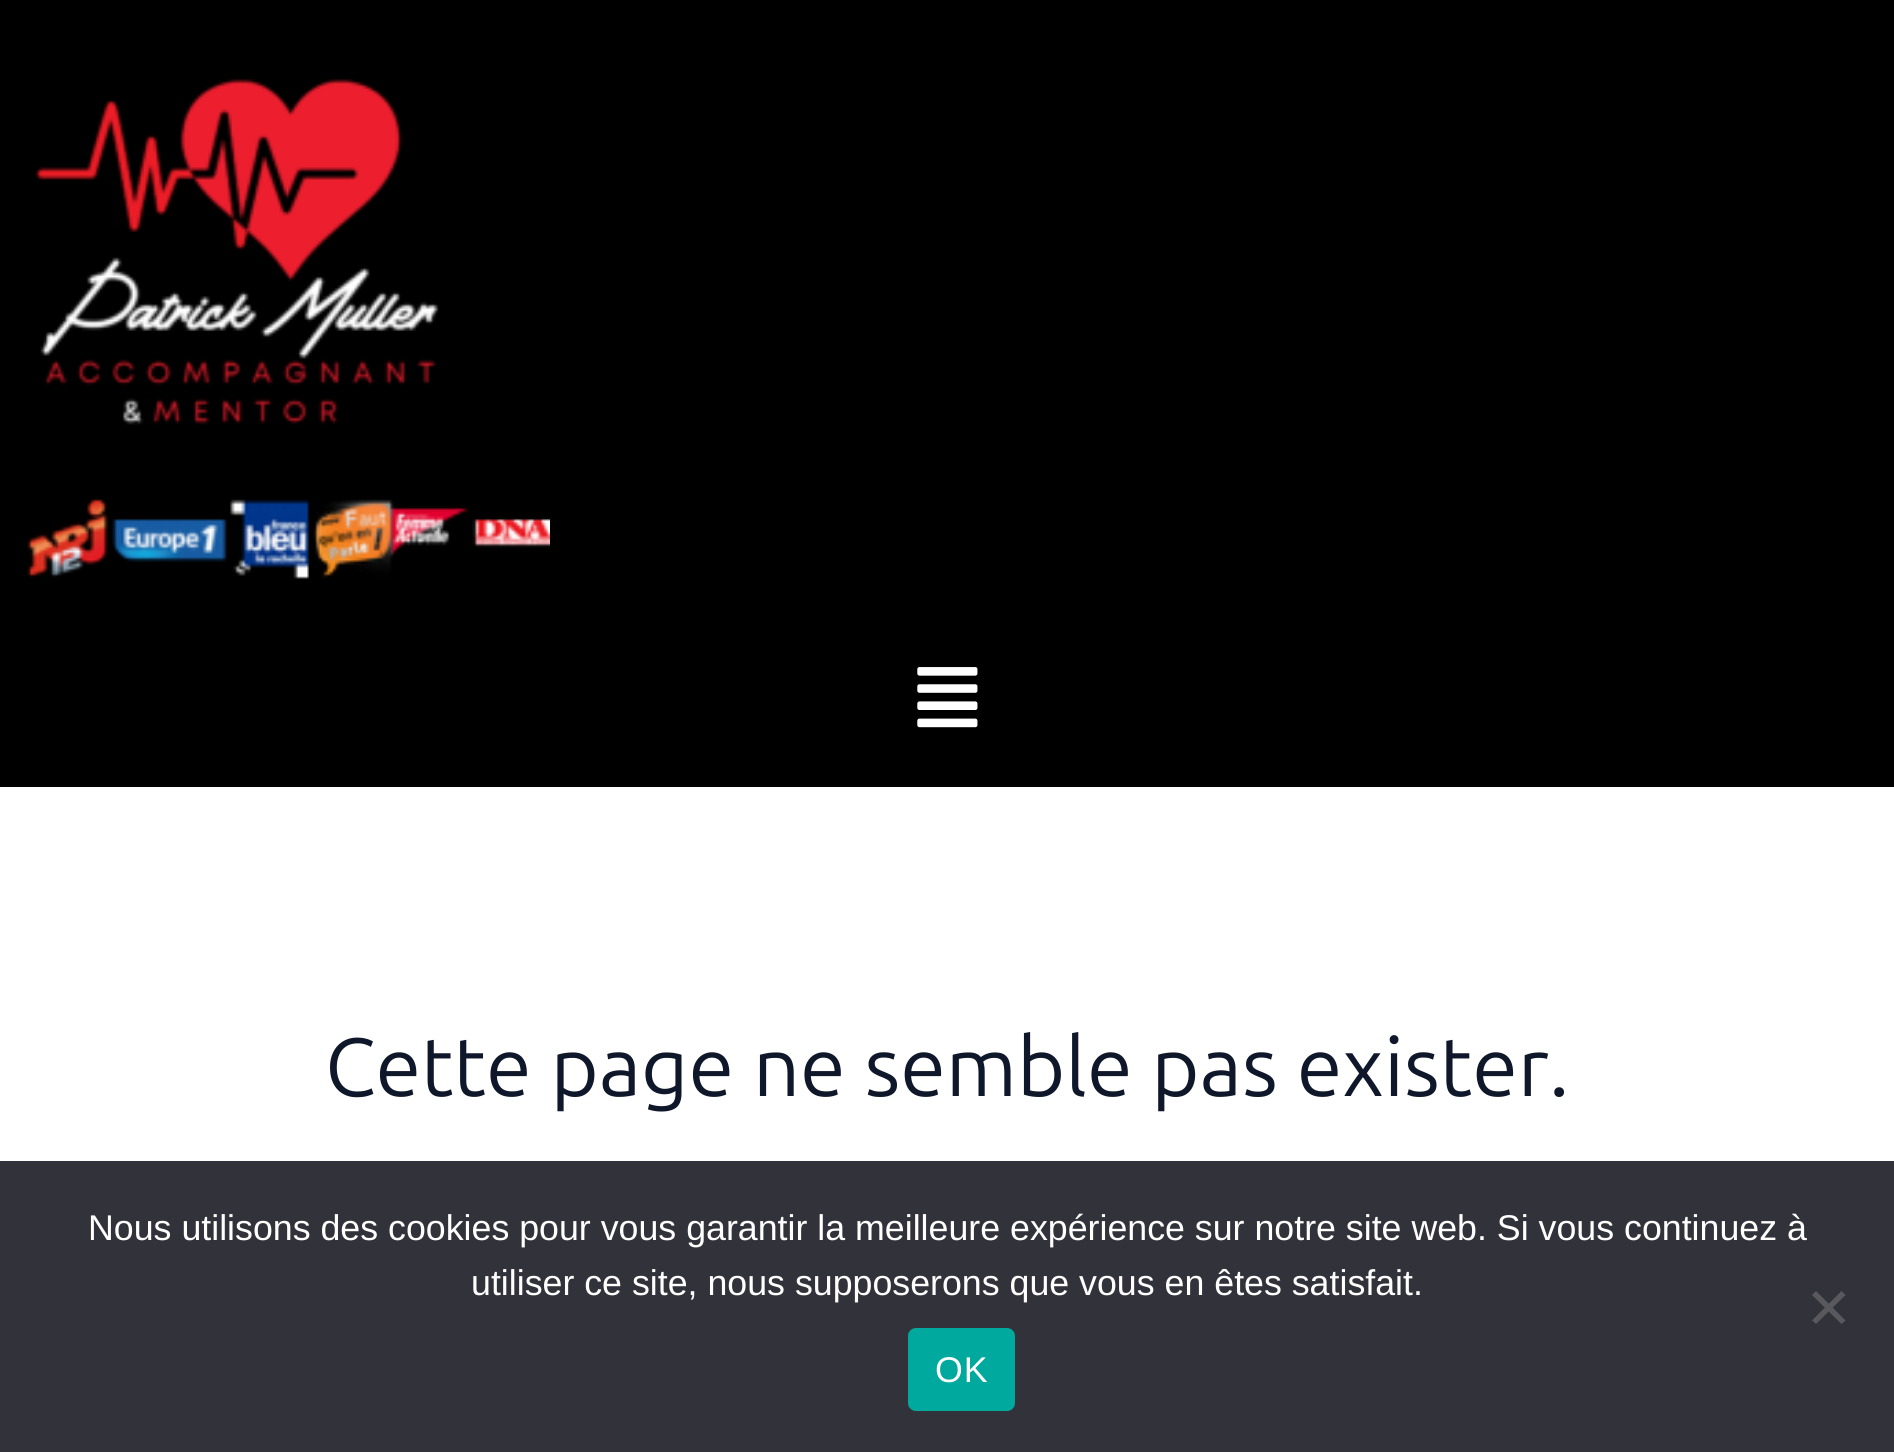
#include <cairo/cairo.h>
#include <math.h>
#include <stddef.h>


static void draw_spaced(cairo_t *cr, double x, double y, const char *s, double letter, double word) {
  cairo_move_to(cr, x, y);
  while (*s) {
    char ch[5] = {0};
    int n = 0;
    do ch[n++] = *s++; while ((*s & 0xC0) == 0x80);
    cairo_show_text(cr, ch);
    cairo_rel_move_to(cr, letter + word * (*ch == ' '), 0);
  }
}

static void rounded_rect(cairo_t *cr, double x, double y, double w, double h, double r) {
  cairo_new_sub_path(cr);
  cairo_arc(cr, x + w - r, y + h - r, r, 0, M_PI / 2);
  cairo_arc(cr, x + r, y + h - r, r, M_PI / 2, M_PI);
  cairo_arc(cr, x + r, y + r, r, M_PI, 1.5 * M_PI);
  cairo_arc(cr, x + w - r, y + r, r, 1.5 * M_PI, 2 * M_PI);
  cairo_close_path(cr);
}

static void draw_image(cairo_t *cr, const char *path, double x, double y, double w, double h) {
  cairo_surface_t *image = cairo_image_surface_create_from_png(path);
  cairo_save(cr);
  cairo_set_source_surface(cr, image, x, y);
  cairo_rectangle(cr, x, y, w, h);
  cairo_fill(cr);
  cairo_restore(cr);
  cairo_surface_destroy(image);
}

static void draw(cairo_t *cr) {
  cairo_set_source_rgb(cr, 1, 1, 1);
  cairo_paint(cr);
  cairo_set_source_rgb(cr, 0, 0, 0);
  cairo_rectangle(cr, 0, 0, 1894, 787);
  cairo_fill(cr);
  draw_image(cr, "images/1.png", 35, 79, 404, 346);
  draw_image(cr, "images/2.png", 27, 498, 523, 81);
  draw_image(cr, "images/3.png", 917, 667, 61, 61);
  cairo_set_source_rgb(cr, 50 / 255.0, 50 / 255.0, 58 / 255.0);
  cairo_rectangle(cr, 0, 1161, 1894, 291);
  cairo_fill(cr);
  cairo_set_source_rgb(cr, 89 / 255.0, 89 / 255.0, 93 / 255.0);
  cairo_new_path(cr);
  cairo_move_to(cr, 1841.5, 1291);
  cairo_line_to(cr, 1845.5, 1295);
  cairo_line_to(cr, 1816, 1324);
  cairo_line_to(cr, 1812, 1320.5);
  cairo_close_path(cr);
  cairo_fill(cr);
  cairo_new_path(cr);
  cairo_move_to(cr, 1812, 1295);
  cairo_line_to(cr, 1816, 1291);
  cairo_line_to(cr, 1845.5, 1320.5);
  cairo_line_to(cr, 1841.5, 1324);
  cairo_close_path(cr);
  cairo_fill(cr);
  cairo_set_source_rgb(cr, 0, 169 / 255.0, 157 / 255.0);
  rounded_rect(cr, 908, 1328, 107, 83, 8);
  cairo_fill(cr);
  cairo_select_font_face(cr, "Ubuntu", CAIRO_FONT_SLANT_NORMAL, CAIRO_FONT_WEIGHT_NORMAL);
  cairo_set_font_size(cr, 82.5);
  cairo_set_source_rgb(cr, 15 / 255.0, 23 / 255.0, 42 / 255.0);
  cairo_move_to(cr, 325, 1096);
  cairo_show_text(cr, "Cette page ne semble pas exister.");
  cairo_select_font_face(cr, "Liberation Sans", CAIRO_FONT_SLANT_NORMAL, CAIRO_FONT_WEIGHT_NORMAL);
  cairo_set_font_size(cr, 35.75);
  cairo_set_source_rgb(cr, 1, 1, 1);
  cairo_move_to(cr, 88, 1240);
  cairo_show_text(cr, "Nous utilisons des cookies pour vous garantir la meilleure expérience sur notre site web. Si vous continuez à");
  cairo_move_to(cr, 471, 1295);
  cairo_show_text(cr, "utiliser ce site, nous supposerons que vous en êtes satisfait.");
  draw_spaced(cr, 935, 1382, "OK", 1, 0);
}

int main(void) {
  cairo_surface_t *surface = cairo_image_surface_create(CAIRO_FORMAT_RGB24, 1894, 1452);
  cairo_t *cr = cairo_create(surface);
  cairo_font_options_t *options = cairo_font_options_create();
  cairo_font_options_set_hint_metrics(options, CAIRO_HINT_METRICS_OFF);
  cairo_font_options_set_hint_style(options, CAIRO_HINT_STYLE_NONE);
  cairo_set_font_options(cr, options);
  cairo_set_miter_limit(cr, 4);
  draw(cr);
  cairo_surface_write_to_png(surface, "out.png");
  cairo_font_options_destroy(options);
  cairo_destroy(cr);
  cairo_surface_destroy(surface);
  return 0;
}
